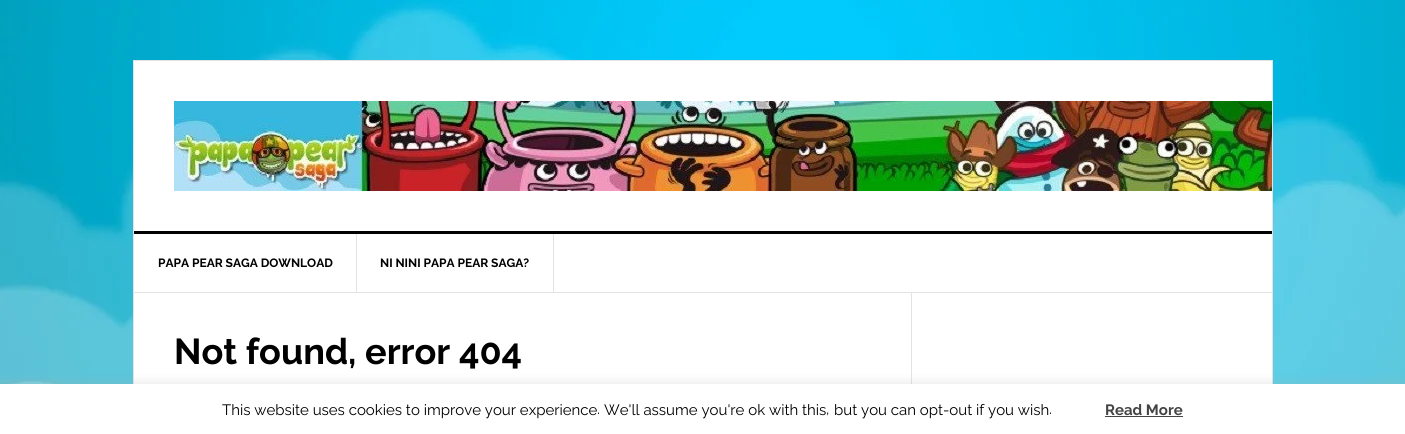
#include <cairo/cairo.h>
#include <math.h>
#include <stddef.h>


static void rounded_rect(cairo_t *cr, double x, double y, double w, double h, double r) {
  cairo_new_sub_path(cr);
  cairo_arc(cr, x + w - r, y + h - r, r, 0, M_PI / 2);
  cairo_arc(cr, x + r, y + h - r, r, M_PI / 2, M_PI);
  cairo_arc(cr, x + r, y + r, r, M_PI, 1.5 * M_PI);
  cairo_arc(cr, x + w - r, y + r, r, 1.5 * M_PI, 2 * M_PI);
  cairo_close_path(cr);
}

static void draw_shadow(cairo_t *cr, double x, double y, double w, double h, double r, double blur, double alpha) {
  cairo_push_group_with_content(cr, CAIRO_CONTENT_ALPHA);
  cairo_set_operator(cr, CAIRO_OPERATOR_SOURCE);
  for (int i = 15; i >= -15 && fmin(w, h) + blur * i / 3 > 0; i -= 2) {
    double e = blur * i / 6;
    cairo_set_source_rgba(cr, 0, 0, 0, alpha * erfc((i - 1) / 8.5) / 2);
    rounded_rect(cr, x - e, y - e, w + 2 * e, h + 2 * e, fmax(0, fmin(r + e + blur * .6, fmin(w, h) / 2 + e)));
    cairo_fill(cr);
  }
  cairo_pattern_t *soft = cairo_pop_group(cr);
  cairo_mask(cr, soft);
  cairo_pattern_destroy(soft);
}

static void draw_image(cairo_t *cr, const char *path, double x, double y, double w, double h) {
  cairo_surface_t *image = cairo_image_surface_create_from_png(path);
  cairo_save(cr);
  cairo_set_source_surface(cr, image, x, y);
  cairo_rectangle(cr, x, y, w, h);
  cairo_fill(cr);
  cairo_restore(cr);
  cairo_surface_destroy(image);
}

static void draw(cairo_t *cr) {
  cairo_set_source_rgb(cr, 1, 1, 1);
  cairo_paint(cr);
  draw_image(cr, "images/1.png", 0, 0, 1405, 384);
  cairo_set_source_rgb(cr, 1, 1, 1);
  cairo_rectangle(cr, 134, 61, 1138, 323);
  cairo_fill(cr);
  cairo_rectangle(cr, 133.5, 60.5, 1139, 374);
  cairo_set_source_rgb(cr, 227 / 255.0, 227 / 255.0, 227 / 255.0);
  cairo_set_line_width(cr, 1);
  cairo_stroke(cr);
  draw_image(cr, "images/2.png", 174, 101, 1098, 90);
  cairo_set_source_rgb(cr, 0, 0, 0);
  cairo_rectangle(cr, 134, 231, 1138, 3);
  cairo_fill(cr);
  cairo_set_source_rgb(cr, 227 / 255.0, 227 / 255.0, 227 / 255.0);
  cairo_rectangle(cr, 134, 292, 1138, 1);
  cairo_fill(cr);
  cairo_rectangle(cr, 356, 234, 1, 58);
  cairo_fill(cr);
  cairo_rectangle(cr, 553, 234, 1, 58);
  cairo_fill(cr);
  cairo_rectangle(cr, 911, 293, 1, 91);
  cairo_fill(cr);
  cairo_set_source_rgb(cr, 172 / 255.0, 171 / 255.0, 171 / 255.0);
  draw_shadow(cr, 0, 383, 1405, 50, 0, 5, 0.3);
  cairo_set_source_rgb(cr, 1, 1, 1);
  cairo_rectangle(cr, 0, 384, 1405, 50);
  cairo_fill(cr);
  cairo_set_source_rgb(cr, 68 / 255.0, 68 / 255.0, 68 / 255.0);
  cairo_rectangle(cr, 1105, 416, 78, 1);
  cairo_fill(cr);
  cairo_select_font_face(cr, "Raleway", CAIRO_FONT_SLANT_NORMAL, CAIRO_FONT_WEIGHT_BOLD);
  cairo_set_font_size(cr, 12);
  cairo_set_source_rgb(cr, 0, 0, 0);
  cairo_move_to(cr, 158, 267);
  cairo_show_text(cr, "PAPA PEAR SAGA DOWNLOAD");
  cairo_move_to(cr, 380, 267);
  cairo_show_text(cr, "NI NINI PAPA PEAR SAGA?");
  cairo_set_font_size(cr, 36);
  cairo_move_to(cr, 174, 364);
  cairo_show_text(cr, "Not found, error 404");
  cairo_select_font_face(cr, "Raleway", CAIRO_FONT_SLANT_NORMAL, CAIRO_FONT_WEIGHT_NORMAL);
  cairo_set_font_size(cr, 15);
  cairo_move_to(cr, 222, 415);
  cairo_show_text(cr, "This website uses cookies to improve your experience");
  cairo_move_to(cr, 597, 414);
  cairo_show_text(cr, ".");
  cairo_move_to(cr, 604, 415);
  cairo_show_text(cr, "We'll assume you're ok with this");
  cairo_move_to(cr, 826, 414);
  cairo_show_text(cr, ",");
  cairo_move_to(cr, 834, 415);
  cairo_show_text(cr, "but you can opt-out if you wish");
  cairo_move_to(cr, 1049, 414);
  cairo_show_text(cr, ".");
  cairo_select_font_face(cr, "Raleway", CAIRO_FONT_SLANT_NORMAL, CAIRO_FONT_WEIGHT_BOLD);
  cairo_set_source_rgb(cr, 68 / 255.0, 68 / 255.0, 68 / 255.0);
  cairo_move_to(cr, 1105, 415);
  cairo_show_text(cr, "Read More");
}

int main(void) {
  cairo_surface_t *surface = cairo_image_surface_create(CAIRO_FORMAT_RGB24, 1405, 434);
  cairo_t *cr = cairo_create(surface);
  cairo_font_options_t *options = cairo_font_options_create();
  cairo_font_options_set_hint_metrics(options, CAIRO_HINT_METRICS_OFF);
  cairo_font_options_set_hint_style(options, CAIRO_HINT_STYLE_NONE);
  cairo_set_font_options(cr, options);
  cairo_set_miter_limit(cr, 4);
  draw(cr);
  cairo_surface_write_to_png(surface, "out.png");
  cairo_font_options_destroy(options);
  cairo_destroy(cr);
  cairo_surface_destroy(surface);
  return 0;
}
